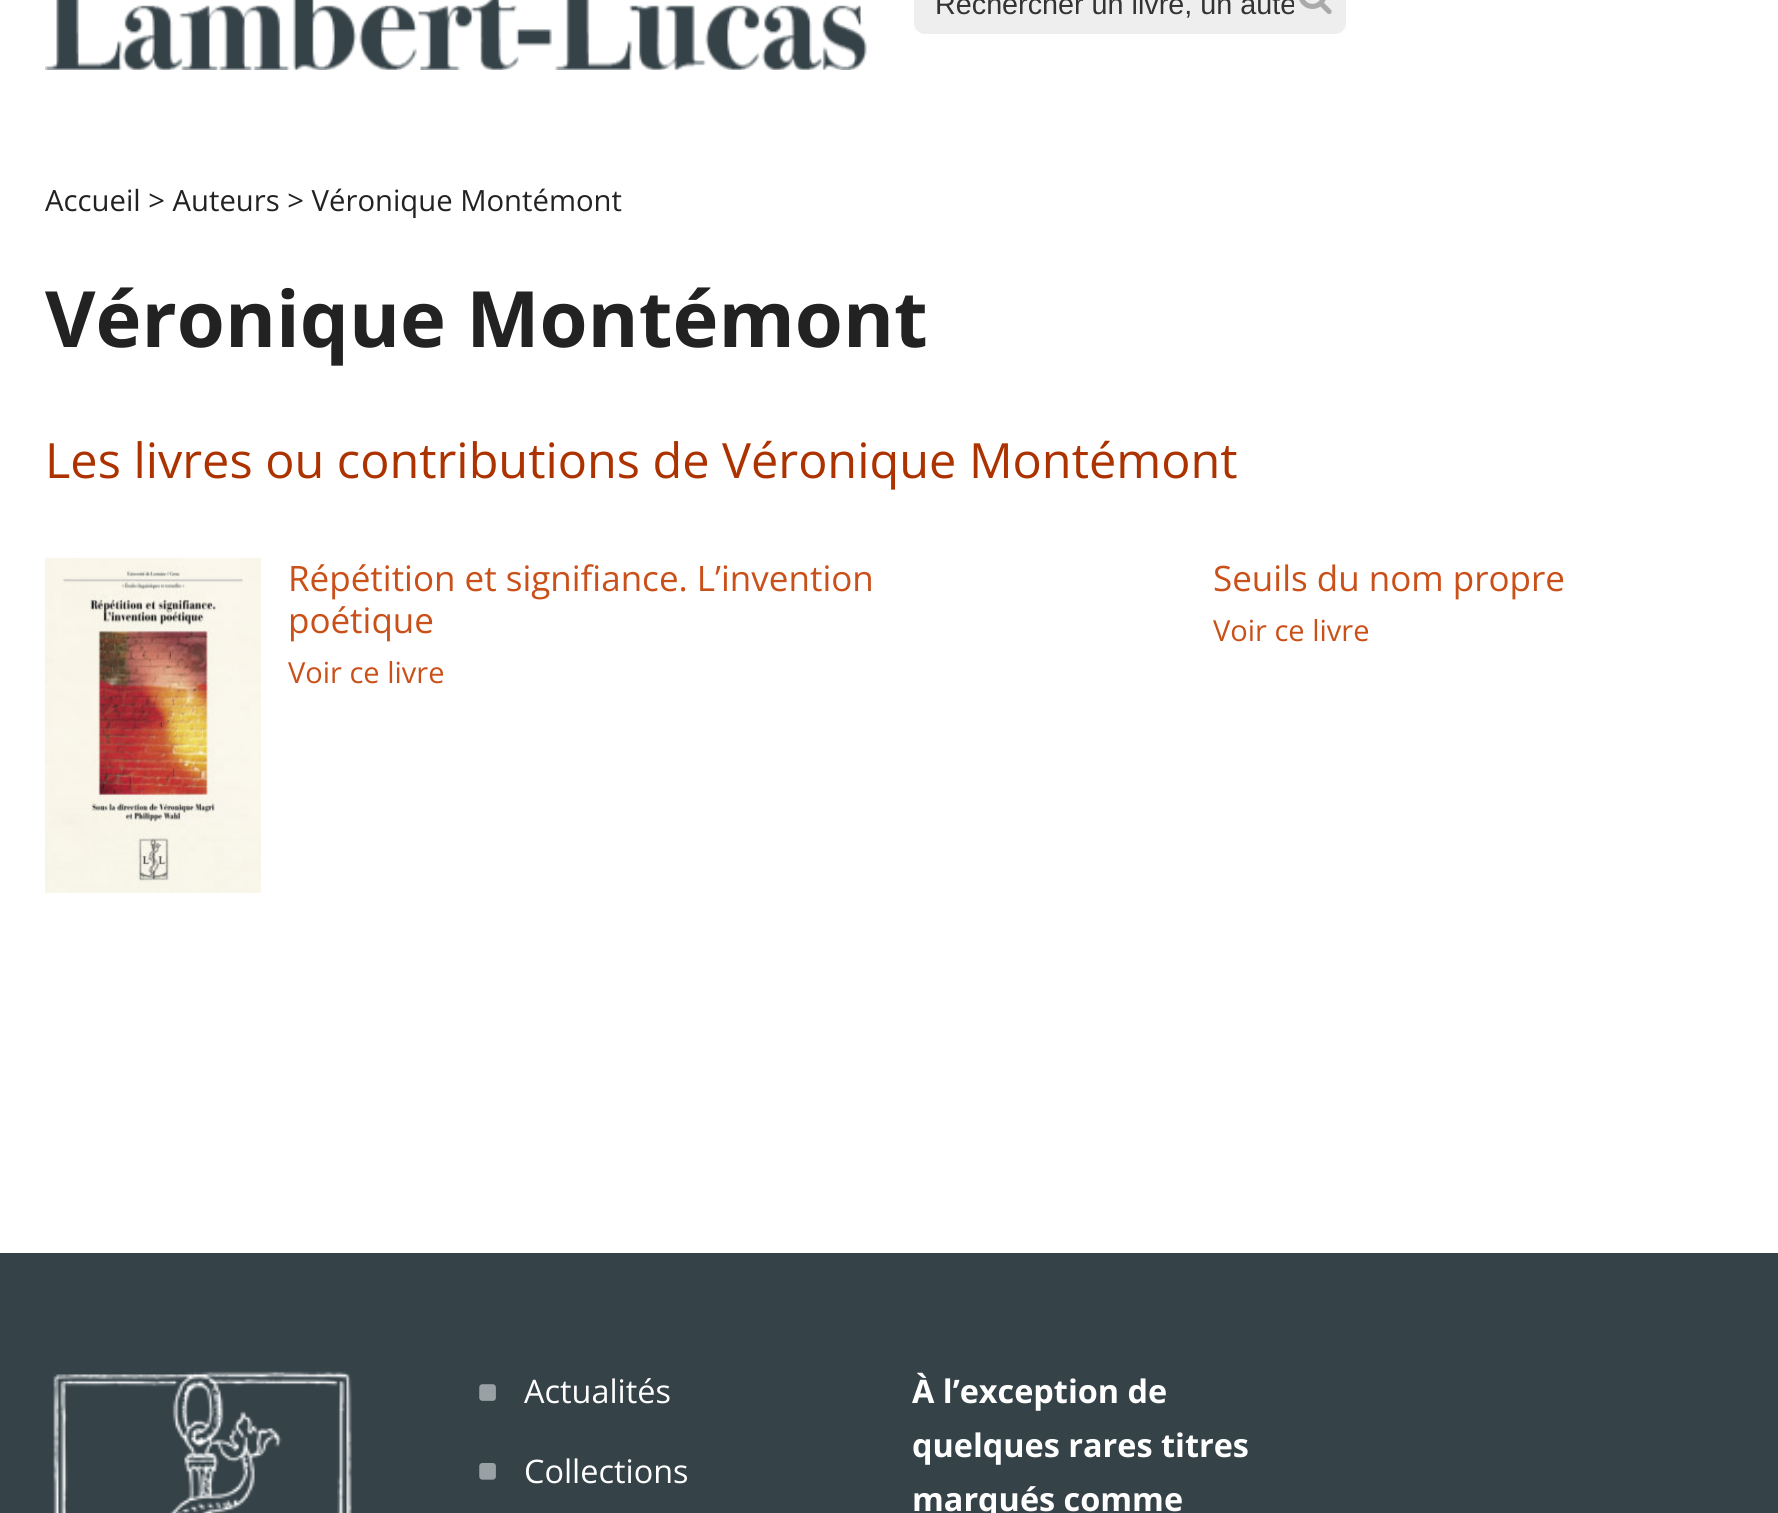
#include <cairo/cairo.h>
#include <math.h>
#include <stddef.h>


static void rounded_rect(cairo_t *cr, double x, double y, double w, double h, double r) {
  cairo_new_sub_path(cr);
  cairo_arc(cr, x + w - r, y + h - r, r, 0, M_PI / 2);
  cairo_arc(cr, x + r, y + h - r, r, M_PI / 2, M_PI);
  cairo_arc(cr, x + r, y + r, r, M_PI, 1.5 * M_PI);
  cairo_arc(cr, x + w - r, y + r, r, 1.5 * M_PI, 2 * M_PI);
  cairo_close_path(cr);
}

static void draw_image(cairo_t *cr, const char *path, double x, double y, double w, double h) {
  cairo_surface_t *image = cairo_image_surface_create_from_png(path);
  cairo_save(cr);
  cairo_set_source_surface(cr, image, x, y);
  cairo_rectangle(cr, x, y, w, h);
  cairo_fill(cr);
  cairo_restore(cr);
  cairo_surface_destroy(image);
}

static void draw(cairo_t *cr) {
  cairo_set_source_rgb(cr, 1, 1, 1);
  cairo_paint(cr);
  draw_image(cr, "images/1.png", 45, 0, 822, 70);
  cairo_set_source_rgb(cr, 238 / 255.0, 238 / 255.0, 238 / 255.0);
  rounded_rect(cr, 914, -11, 432, 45, 11);
  cairo_fill(cr);
  draw_image(cr, "images/2.png", 1299, 0, 33, 15);
  draw_image(cr, "images/3.png", 45, 557, 216, 336);
  cairo_set_source_rgb(cr, 53 / 255.0, 66 / 255.0, 72 / 255.0);
  cairo_rectangle(cr, 0, 1253, 1778, 260);
  cairo_fill(cr);
  draw_image(cr, "images/4.png", 53, 1371, 299, 142);
  draw_image(cr, "images/5.png", 479, 1384, 17, 17);
  draw_image(cr, "images/6.png", 479, 1463, 17, 17);
  cairo_save(cr);
  cairo_rectangle(cr, 936, 0, 358, 20);
  cairo_clip(cr);
  cairo_select_font_face(cr, "Liberation Sans", CAIRO_FONT_SLANT_NORMAL, CAIRO_FONT_WEIGHT_NORMAL);
  cairo_set_font_size(cr, 28.75);
  cairo_set_source_rgb(cr, 51 / 255.0, 51 / 255.0, 51 / 255.0);
  cairo_move_to(cr, 935, 14);
  cairo_show_text(cr, "Rechercher un livre, un aute");
  cairo_restore(cr);
  cairo_select_font_face(cr, "Open Sans", CAIRO_FONT_SLANT_NORMAL, CAIRO_FONT_WEIGHT_NORMAL);
  cairo_set_font_size(cr, 29.25);
  cairo_set_source_rgb(cr, 34 / 255.0, 34 / 255.0, 34 / 255.0);
  cairo_move_to(cr, 45, 211);
  cairo_show_text(cr, "Accueil > Auteurs > Véronique Montémont");
  cairo_select_font_face(cr, "Open Sans", CAIRO_FONT_SLANT_NORMAL, CAIRO_FONT_WEIGHT_BOLD);
  cairo_set_font_size(cr, 77.75);
  cairo_move_to(cr, 45, 347);
  cairo_show_text(cr, "Véronique Montémont");
  cairo_select_font_face(cr, "Open Sans", CAIRO_FONT_SLANT_NORMAL, CAIRO_FONT_WEIGHT_NORMAL);
  cairo_set_font_size(cr, 48.6);
  cairo_set_source_rgb(cr, 172 / 255.0, 50 / 255.0, 0);
  cairo_move_to(cr, 45, 478);
  cairo_show_text(cr, "Les livres ou contributions de");
  cairo_move_to(cr, 722, 478);
  cairo_show_text(cr, "Véronique Montémont");
  cairo_set_font_size(cr, 35);
  cairo_set_source_rgb(cr, 202 / 255.0, 80 / 255.0, 26 / 255.0);
  cairo_move_to(cr, 288, 591);
  cairo_show_text(cr, "Répétition et signifiance. L’invention");
  cairo_move_to(cr, 288, 633);
  cairo_show_text(cr, "poétique");
  cairo_set_font_size(cr, 29);
  cairo_move_to(cr, 288, 683);
  cairo_show_text(cr, "Voir ce livre");
  cairo_set_font_size(cr, 35);
  cairo_move_to(cr, 1213, 591);
  cairo_show_text(cr, "Seuils du nom propre");
  cairo_set_font_size(cr, 29);
  cairo_move_to(cr, 1213, 641);
  cairo_show_text(cr, "Voir ce livre");
  cairo_set_font_size(cr, 32.4);
  cairo_set_source_rgb(cr, 1, 1, 1);
  cairo_move_to(cr, 524, 1403);
  cairo_show_text(cr, "Actualités");
  cairo_move_to(cr, 524, 1483);
  cairo_show_text(cr, "Collections");
  cairo_select_font_face(cr, "Open Sans", CAIRO_FONT_SLANT_NORMAL, CAIRO_FONT_WEIGHT_BOLD);
  cairo_move_to(cr, 912, 1403);
  cairo_show_text(cr, "À l’exception de");
  cairo_move_to(cr, 912, 1457);
  cairo_show_text(cr, "quelques rares titres");
  cairo_move_to(cr, 912, 1511);
  cairo_show_text(cr, "marqués comme");
}

int main(void) {
  cairo_surface_t *surface = cairo_image_surface_create(CAIRO_FORMAT_RGB24, 1778, 1513);
  cairo_t *cr = cairo_create(surface);
  cairo_font_options_t *options = cairo_font_options_create();
  cairo_font_options_set_hint_metrics(options, CAIRO_HINT_METRICS_OFF);
  cairo_font_options_set_hint_style(options, CAIRO_HINT_STYLE_NONE);
  cairo_set_font_options(cr, options);
  cairo_set_miter_limit(cr, 4);
  draw(cr);
  cairo_surface_write_to_png(surface, "out.png");
  cairo_font_options_destroy(options);
  cairo_destroy(cr);
  cairo_surface_destroy(surface);
  return 0;
}
